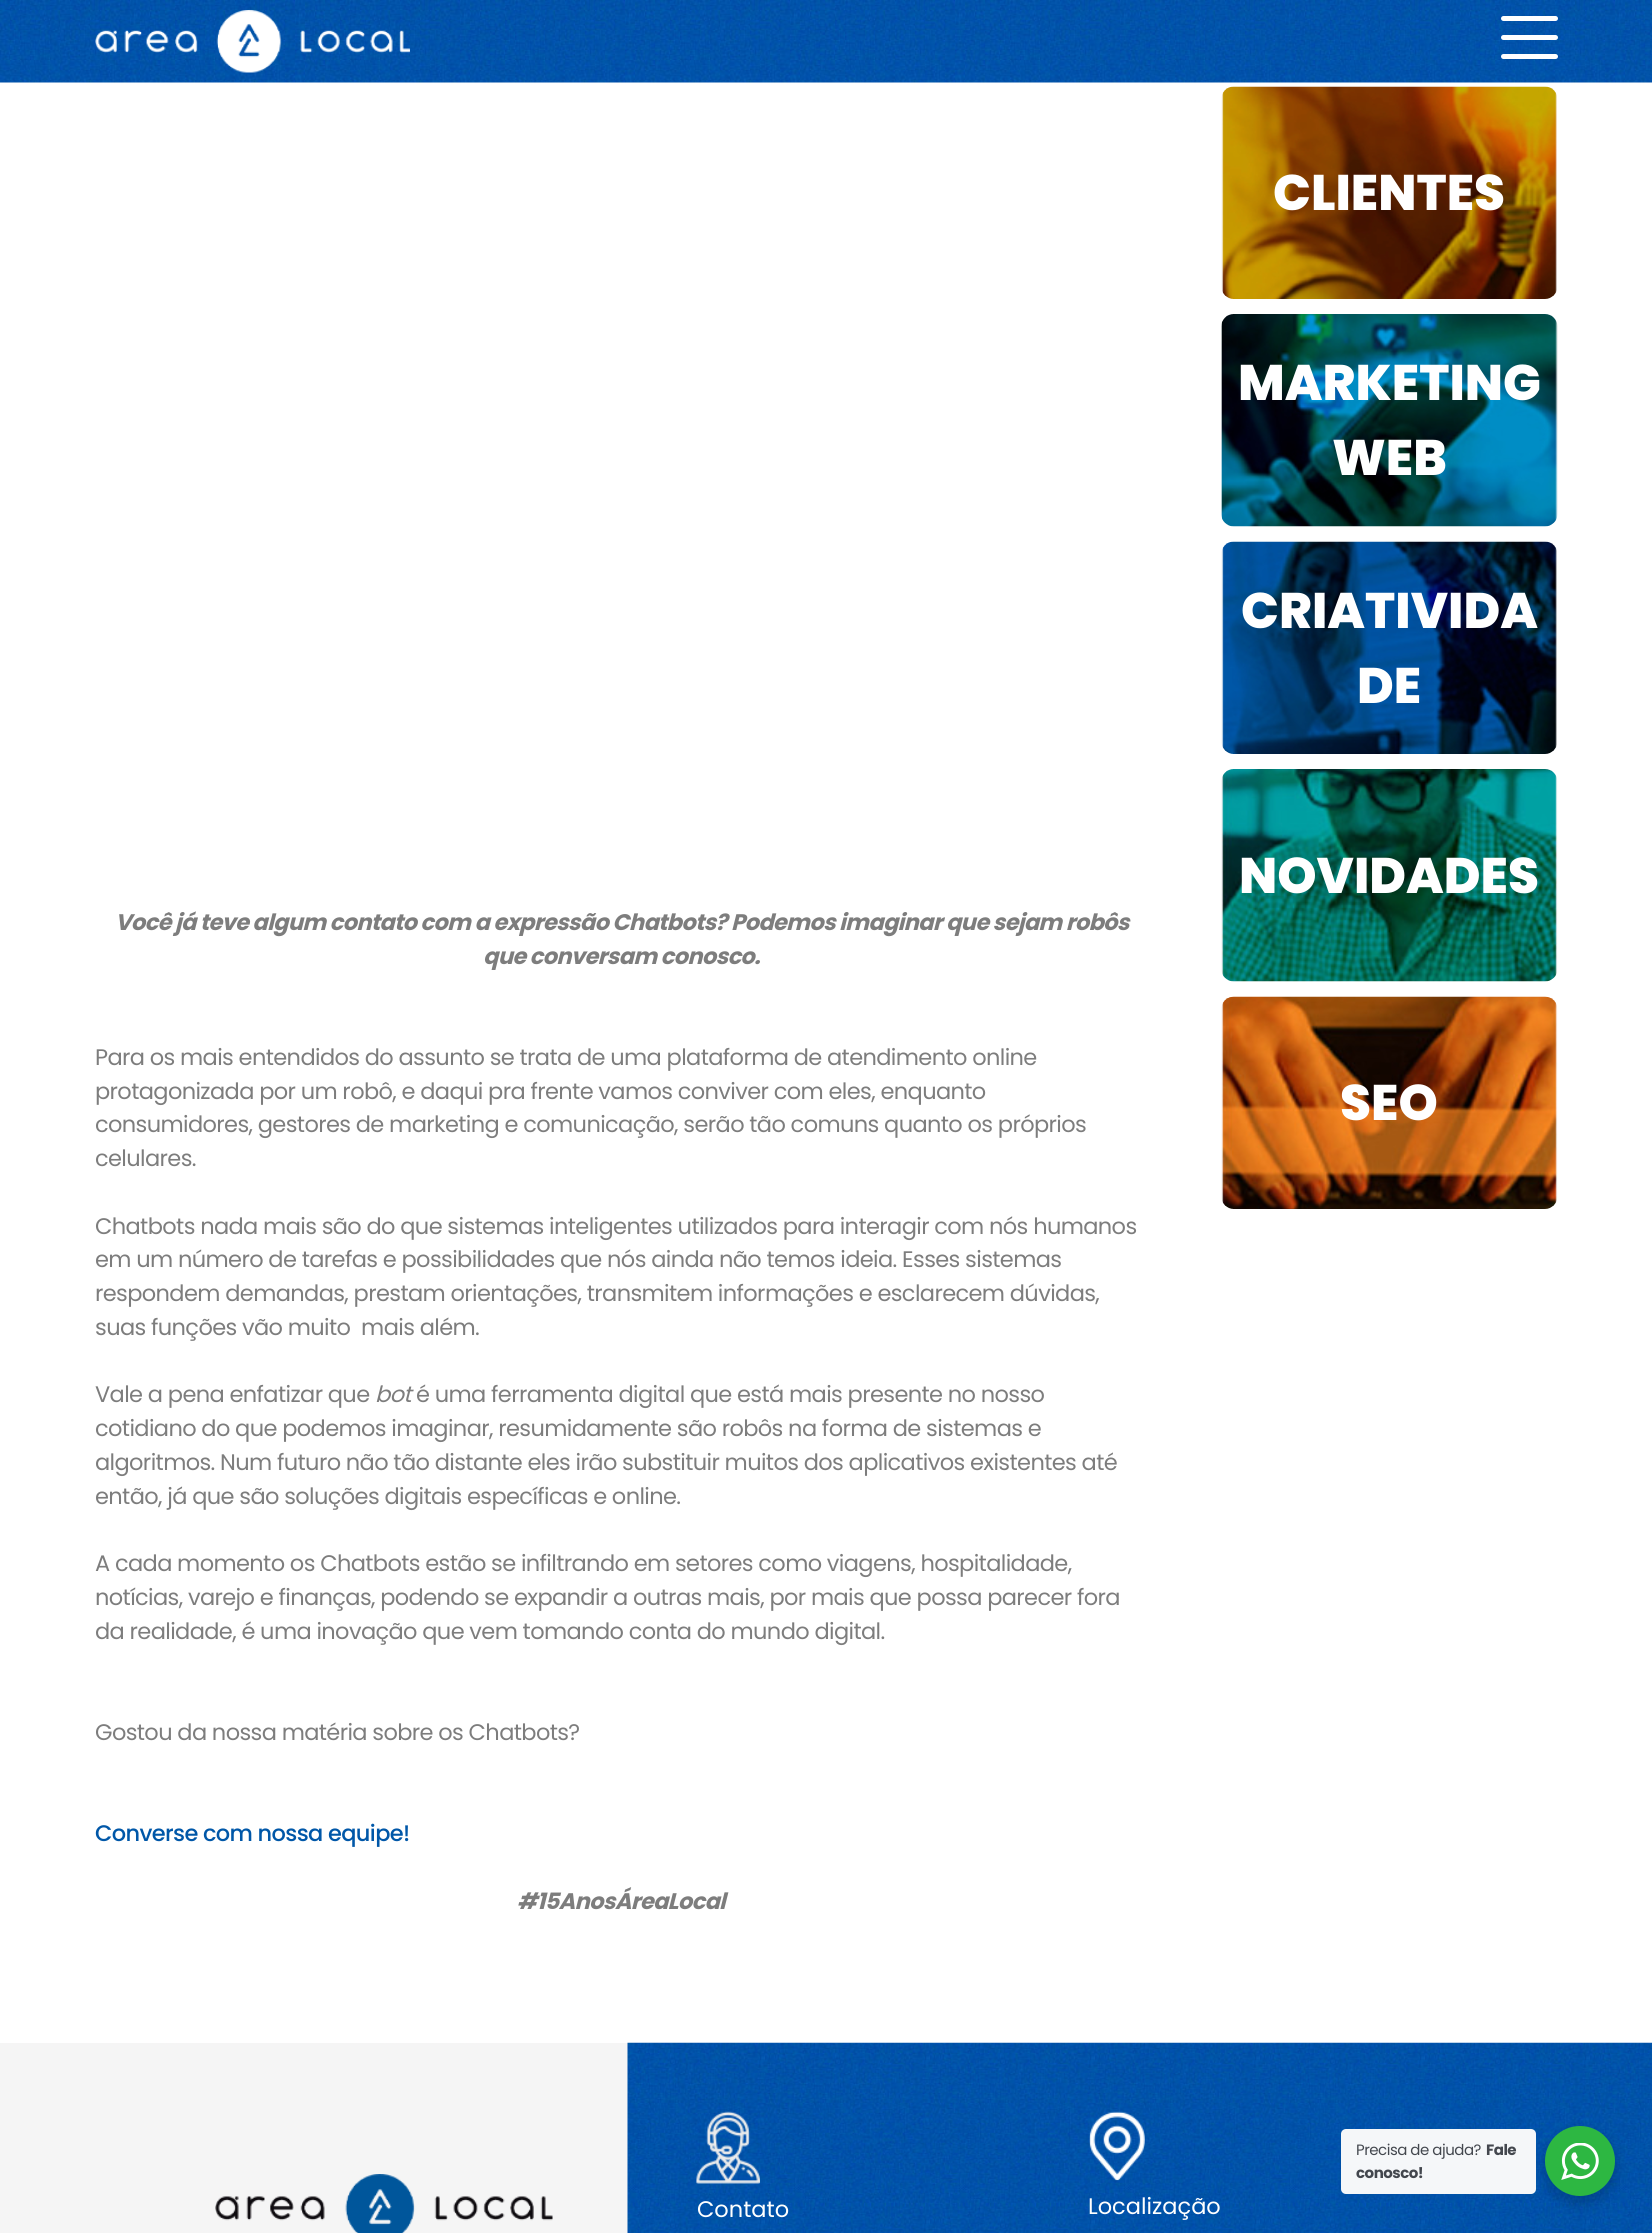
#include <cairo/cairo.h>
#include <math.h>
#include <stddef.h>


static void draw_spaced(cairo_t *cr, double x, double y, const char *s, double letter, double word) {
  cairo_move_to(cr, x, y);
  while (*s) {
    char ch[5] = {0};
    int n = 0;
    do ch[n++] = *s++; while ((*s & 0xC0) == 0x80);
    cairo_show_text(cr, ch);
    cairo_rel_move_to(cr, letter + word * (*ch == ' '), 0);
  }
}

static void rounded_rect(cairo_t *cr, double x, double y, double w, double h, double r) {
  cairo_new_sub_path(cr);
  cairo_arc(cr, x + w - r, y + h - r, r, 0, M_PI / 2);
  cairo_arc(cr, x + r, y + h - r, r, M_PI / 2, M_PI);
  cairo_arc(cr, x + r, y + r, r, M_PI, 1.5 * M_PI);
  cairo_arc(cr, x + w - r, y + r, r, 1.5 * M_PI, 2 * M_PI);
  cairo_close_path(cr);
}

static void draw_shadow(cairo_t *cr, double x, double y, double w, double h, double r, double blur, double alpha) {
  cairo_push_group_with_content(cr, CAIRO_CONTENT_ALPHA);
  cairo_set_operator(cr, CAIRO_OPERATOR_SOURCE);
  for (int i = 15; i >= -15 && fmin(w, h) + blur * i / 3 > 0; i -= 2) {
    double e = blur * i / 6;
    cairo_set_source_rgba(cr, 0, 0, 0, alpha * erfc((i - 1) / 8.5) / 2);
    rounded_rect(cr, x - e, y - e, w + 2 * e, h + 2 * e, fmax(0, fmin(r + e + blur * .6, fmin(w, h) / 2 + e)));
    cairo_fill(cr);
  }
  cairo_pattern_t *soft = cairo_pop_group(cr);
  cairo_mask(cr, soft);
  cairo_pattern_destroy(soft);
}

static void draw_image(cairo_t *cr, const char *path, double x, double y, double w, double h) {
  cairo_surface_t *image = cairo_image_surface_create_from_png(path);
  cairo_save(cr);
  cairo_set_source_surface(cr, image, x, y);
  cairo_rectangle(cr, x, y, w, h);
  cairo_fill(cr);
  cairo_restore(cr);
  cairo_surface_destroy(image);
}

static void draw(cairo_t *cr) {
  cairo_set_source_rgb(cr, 1, 1, 1);
  cairo_paint(cr);
  draw_image(cr, "images/1.png", 0, 0, 1652, 83);
  draw_image(cr, "images/2.png", 95, 10, 315, 63);
  cairo_set_source_rgb(cr, 1, 1, 1);
  rounded_rect(cr, 1501, 16, 57, 5, 2.5);
  cairo_fill(cr);
  rounded_rect(cr, 1501, 35, 57, 5, 2.5);
  cairo_fill(cr);
  rounded_rect(cr, 1501, 54, 57, 5, 2.5);
  cairo_fill(cr);
  draw_image(cr, "images/3.png", 1221, 86, 336, 213);
  draw_image(cr, "images/4.png", 1221, 314, 337, 213);
  draw_image(cr, "images/5.png", 1221, 541, 336, 213);
  draw_image(cr, "images/6.png", 1221, 769, 337, 213);
  draw_image(cr, "images/7.png", 1221, 996, 337, 213);
  cairo_set_source_rgb(cr, 245 / 255.0, 245 / 255.0, 245 / 255.0);
  cairo_rectangle(cr, 0, 2043, 628, 190);
  cairo_fill(cr);
  draw_image(cr, "images/10.png", 627, 2042, 1025, 191);
  cairo_set_source_rgb(cr, 0, 0, 0);
  draw_shadow(cr, 1543, 2131, 75, 75, 37.5, 5, 0.14);
  cairo_set_source_rgb(cr, 245 / 255.0, 247 / 255.0, 249 / 255.0);
  rounded_rect(cr, 1341, 2129, 195, 65, 5);
  cairo_fill(cr);
  cairo_set_source_rgb(cr, 45 / 255.0, 183 / 255.0, 66 / 255.0);
  cairo_arc(cr, 1580, 2161, 35, 0, 2 * M_PI);
  cairo_fill(cr);
  draw_image(cr, "images/8.png", 1561, 2143, 38, 37);
  draw_image(cr, "images/9.png", 215, 2174, 338, 59);
  draw_image(cr, "images/11.png", 696, 2111, 64, 73);
  draw_image(cr, "images/12.png", 1089, 2111, 56, 70);
  cairo_select_font_face(cr, "Poppins ExtraBold", CAIRO_FONT_SLANT_NORMAL, CAIRO_FONT_WEIGHT_NORMAL);
  cairo_set_font_size(cr, 50);
  cairo_set_source_rgb(cr, 1, 1, 1);
  cairo_move_to(cr, 1273, 210);
  cairo_show_text(cr, "CLIENTES");
  cairo_move_to(cr, 1238, 400);
  cairo_show_text(cr, "MARKETING");
  cairo_move_to(cr, 1332, 475);
  cairo_show_text(cr, "WEB");
  cairo_move_to(cr, 1241, 628);
  cairo_show_text(cr, "CRIATIVIDA");
  cairo_move_to(cr, 1357, 703);
  cairo_show_text(cr, "DE");
  cairo_move_to(cr, 1239, 893);
  cairo_show_text(cr, "NOVIDADES");
  cairo_move_to(cr, 1340, 1120);
  cairo_show_text(cr, "SEO");
  cairo_select_font_face(cr, "Poppins", CAIRO_FONT_SLANT_ITALIC, CAIRO_FONT_WEIGHT_BOLD);
  cairo_set_font_size(cr, 22.5);
  cairo_set_source_rgb(cr, 125 / 255.0, 125 / 255.0, 125 / 255.0);
  draw_spaced(cr, 115, 930, "Você já teve algum contato com a expressão Chatbots? Podemos imaginar que sejam robôs", -0.62, 0);
  draw_spaced(cr, 483, 964, "que conversam conosco.", -0.62, 0);
  cairo_select_font_face(cr, "Poppins", CAIRO_FONT_SLANT_NORMAL, CAIRO_FONT_WEIGHT_NORMAL);
  draw_spaced(cr, 95, 1065, "Para os mais entendidos do assunto se trata de uma plataforma de atendimento online", -0.62, 0);
  draw_spaced(cr, 95, 1099, "protagonizada por um robô, e daqui pra frente vamos conviver com eles, enquanto", -0.62, 0);
  draw_spaced(cr, 95, 1132, "consumidores, gestores de marketing e comunicação, serão tão comuns quanto os próprios", -0.62, 0);
  draw_spaced(cr, 95, 1166, "celulares.", -0.62, 0);
  draw_spaced(cr, 95, 1234, "Chatbots nada mais são do que sistemas inteligentes utilizados para interagir com nós humanos", -0.62, 0);
  draw_spaced(cr, 95, 1267, "em um número de tarefas e possibilidades que nós ainda não temos ideia. Esses sistemas", -0.62, 0);
  draw_spaced(cr, 95, 1301, "respondem demandas, prestam orientações, transmitem informações e esclarecem dúvidas,", -0.62, 0);
  draw_spaced(cr, 95, 1335, "suas funções vão muito  mais além.", -0.62, 0);
  draw_spaced(cr, 95, 1402, "Vale a pena enfatizar que", -0.62, 0);
  cairo_select_font_face(cr, "Poppins", CAIRO_FONT_SLANT_ITALIC, CAIRO_FONT_WEIGHT_NORMAL);
  draw_spaced(cr, 375, 1402, "bot", -0.62, 0);
  cairo_select_font_face(cr, "Poppins", CAIRO_FONT_SLANT_NORMAL, CAIRO_FONT_WEIGHT_NORMAL);
  draw_spaced(cr, 416, 1402, "é uma ferramenta digital que está mais presente no nosso", -0.62, 0);
  draw_spaced(cr, 95, 1436, "cotidiano do que podemos imaginar, resumidamente são robôs na forma de sistemas e", -0.62, 0);
  draw_spaced(cr, 95, 1470, "algoritmos. Num futuro não tão distante eles irão substituir muitos dos aplicativos existentes até", -0.62, 0);
  draw_spaced(cr, 95, 1504, "então, já que são soluções digitais específicas e online.", -0.62, 0);
  draw_spaced(cr, 95, 1571, "A cada momento os Chatbots estão se infiltrando em setores como viagens, hospitalidade,", -0.62, 0);
  draw_spaced(cr, 95, 1605, "notícias, varejo e finanças, podendo se expandir a outras mais, por mais que possa parecer fora", -0.62, 0);
  draw_spaced(cr, 95, 1639, "da realidade, é uma inovação que vem tomando conta do mundo digital.", -0.62, 0);
  draw_spaced(cr, 95, 1740, "Gostou da nossa matéria sobre os Chatbots?", -0.62, 0);
  cairo_select_font_face(cr, "Poppins Medium", CAIRO_FONT_SLANT_NORMAL, CAIRO_FONT_WEIGHT_NORMAL);
  cairo_set_source_rgb(cr, 0, 87 / 255.0, 168 / 255.0);
  draw_spaced(cr, 95, 1841, "Converse com nossa equipe!", -0.62, 0);
  cairo_select_font_face(cr, "Poppins", CAIRO_FONT_SLANT_ITALIC, CAIRO_FONT_WEIGHT_BOLD);
  cairo_set_source_rgb(cr, 125 / 255.0, 125 / 255.0, 125 / 255.0);
  draw_spaced(cr, 517, 1909, "#15AnosÁreaLocal", -0.62, 0);
  cairo_select_font_face(cr, "Poppins", CAIRO_FONT_SLANT_NORMAL, CAIRO_FONT_WEIGHT_NORMAL);
  cairo_set_font_size(cr, 15);
  cairo_set_source_rgb(cr, 67 / 255.0, 71 / 255.0, 78 / 255.0);
  draw_spaced(cr, 1356, 2155, "Precisa de ajuda?", -0.5, 0);
  cairo_select_font_face(cr, "Poppins", CAIRO_FONT_SLANT_NORMAL, CAIRO_FONT_WEIGHT_BOLD);
  draw_spaced(cr, 1486, 2155, "Fale", -0.5, 0);
  draw_spaced(cr, 1356, 2178, "conosco!", -0.5, 0);
  cairo_select_font_face(cr, "Poppins", CAIRO_FONT_SLANT_NORMAL, CAIRO_FONT_WEIGHT_NORMAL);
  cairo_set_font_size(cr, 22.5);
  cairo_set_source_rgb(cr, 1, 1, 1);
  cairo_move_to(cr, 697, 2217);
  cairo_show_text(cr, "Contato");
  cairo_move_to(cr, 1088, 2214);
  cairo_show_text(cr, "Localização");
}

int main(void) {
  cairo_surface_t *surface = cairo_image_surface_create(CAIRO_FORMAT_RGB24, 1652, 2233);
  cairo_t *cr = cairo_create(surface);
  cairo_font_options_t *options = cairo_font_options_create();
  cairo_font_options_set_hint_metrics(options, CAIRO_HINT_METRICS_OFF);
  cairo_font_options_set_hint_style(options, CAIRO_HINT_STYLE_NONE);
  cairo_set_font_options(cr, options);
  cairo_set_miter_limit(cr, 4);
  draw(cr);
  cairo_surface_write_to_png(surface, "out.png");
  cairo_font_options_destroy(options);
  cairo_destroy(cr);
  cairo_surface_destroy(surface);
  return 0;
}
